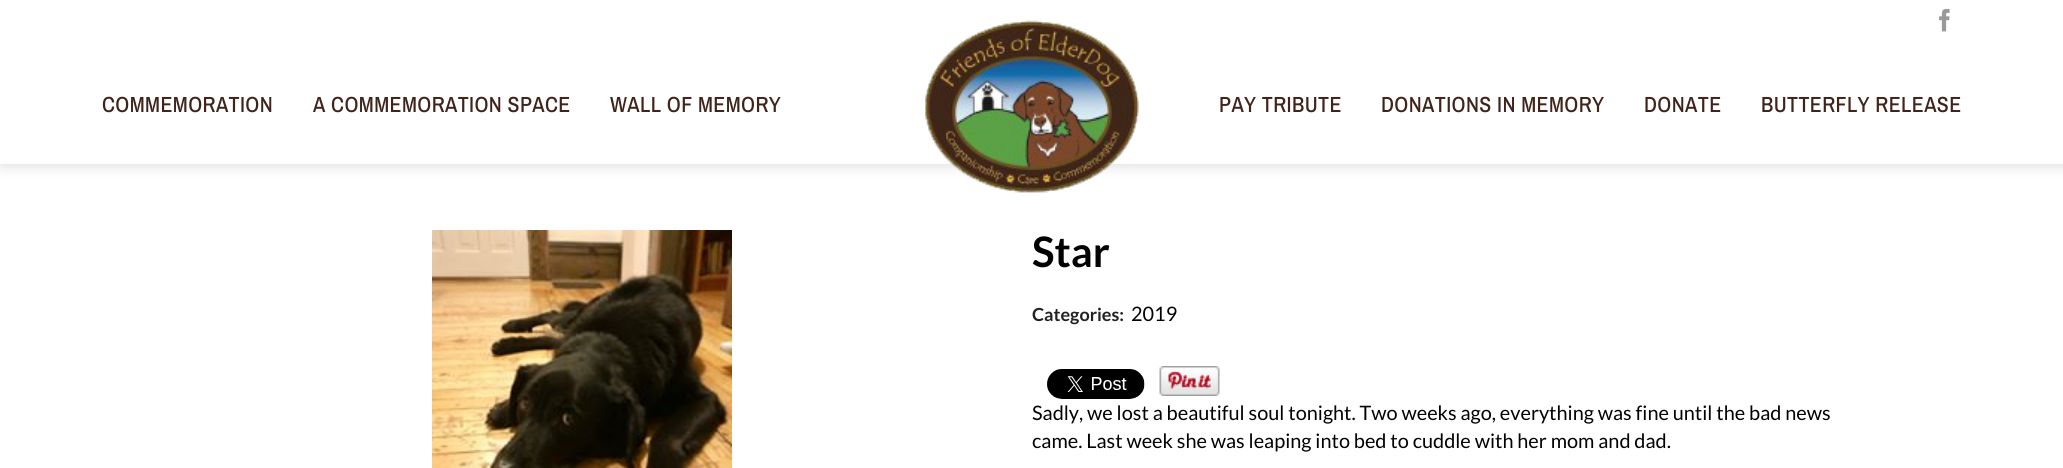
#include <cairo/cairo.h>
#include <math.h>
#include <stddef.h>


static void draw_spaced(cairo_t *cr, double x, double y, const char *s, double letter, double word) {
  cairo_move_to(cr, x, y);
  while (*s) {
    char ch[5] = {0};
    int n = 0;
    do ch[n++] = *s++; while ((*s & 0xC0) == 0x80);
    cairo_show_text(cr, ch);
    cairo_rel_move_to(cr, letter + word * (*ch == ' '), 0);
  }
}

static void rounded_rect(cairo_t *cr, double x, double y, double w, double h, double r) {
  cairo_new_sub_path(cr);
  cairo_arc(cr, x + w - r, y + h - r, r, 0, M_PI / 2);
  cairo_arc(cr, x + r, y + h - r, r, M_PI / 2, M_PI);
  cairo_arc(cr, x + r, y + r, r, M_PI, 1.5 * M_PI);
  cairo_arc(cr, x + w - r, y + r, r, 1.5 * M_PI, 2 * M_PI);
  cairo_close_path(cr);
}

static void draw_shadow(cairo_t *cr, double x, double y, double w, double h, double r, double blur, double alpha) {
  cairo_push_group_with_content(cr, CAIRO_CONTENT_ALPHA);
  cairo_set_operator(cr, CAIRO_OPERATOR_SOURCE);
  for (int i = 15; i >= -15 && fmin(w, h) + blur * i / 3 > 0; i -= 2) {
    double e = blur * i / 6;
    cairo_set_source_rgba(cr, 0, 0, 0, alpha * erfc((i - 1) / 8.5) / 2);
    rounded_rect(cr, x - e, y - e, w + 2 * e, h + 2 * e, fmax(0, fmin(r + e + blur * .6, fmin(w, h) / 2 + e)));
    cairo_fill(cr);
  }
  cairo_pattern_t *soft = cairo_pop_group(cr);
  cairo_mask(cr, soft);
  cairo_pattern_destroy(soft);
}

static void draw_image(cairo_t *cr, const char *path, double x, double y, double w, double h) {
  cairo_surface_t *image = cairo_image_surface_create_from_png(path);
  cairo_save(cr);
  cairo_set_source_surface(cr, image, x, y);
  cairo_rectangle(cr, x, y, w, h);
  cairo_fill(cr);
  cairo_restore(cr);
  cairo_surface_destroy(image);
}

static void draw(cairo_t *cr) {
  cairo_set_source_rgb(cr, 1, 1, 1);
  cairo_paint(cr);
  cairo_save(cr);
  cairo_set_fill_rule(cr, CAIRO_FILL_RULE_EVEN_ODD);
  cairo_new_path(cr);
  cairo_move_to(cr, 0, 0);
  cairo_line_to(cr, 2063, 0);
  cairo_line_to(cr, 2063, 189);
  cairo_line_to(cr, 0, 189);
  cairo_close_path(cr);
  cairo_move_to(cr, 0, 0);
  cairo_line_to(cr, 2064, 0);
  cairo_line_to(cr, 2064, 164);
  cairo_line_to(cr, 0, 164);
  cairo_close_path(cr);
  cairo_clip(cr);
  cairo_set_source_rgb(cr, 0, 0, 0);
  draw_shadow(cr, 2, 2, 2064, 163, 0, 7.5, 0.15);
  cairo_restore(cr);
  draw_image(cr, "images/1.png", 1939, 9, 11, 23);
  cairo_set_source_rgba(cr, 1, 1, 1, 0.9);
  cairo_rectangle(cr, 0, 163, 2063, 1);
  cairo_fill(cr);
  draw_image(cr, "images/2.png", 925, 20, 214, 173);
  draw_image(cr, "images/3.png", 432, 230, 300, 238);
  draw_image(cr, "images/4.png", 1047, 369, 98, 30);
  draw_image(cr, "images/5.png", 1159, 366, 61, 30);
  cairo_select_font_face(cr, "Archivo Narrow Medium", CAIRO_FONT_SLANT_NORMAL, CAIRO_FONT_WEIGHT_NORMAL);
  cairo_set_font_size(cr, 21.9);
  cairo_set_source_rgb(cr, 64 / 255.0, 36 / 255.0, 27 / 255.0);
  draw_spaced(cr, 102, 112, "COMMEMORATION", 0.4, 0);
  draw_spaced(cr, 313, 112, "A COMMEMORATION SPACE", 0.4, 0);
  draw_spaced(cr, 610, 112, "WALL OF MEMORY", 0.4, 0);
  draw_spaced(cr, 1219, 112, "PAY TRIBUTE", 0.4, 0);
  draw_spaced(cr, 1381, 112, "DONATIONS IN MEMORY", 0.4, 0);
  draw_spaced(cr, 1644, 112, "DONATE", 0.4, 0);
  draw_spaced(cr, 1761, 112, "BUTTERFLY RELEASE", 0.4, 0);
  cairo_select_font_face(cr, "Lato", CAIRO_FONT_SLANT_NORMAL, CAIRO_FONT_WEIGHT_BOLD);
  cairo_set_font_size(cr, 42);
  cairo_set_source_rgb(cr, 2 / 255.0, 2 / 255.0, 2 / 255.0);
  cairo_move_to(cr, 1032, 267);
  cairo_show_text(cr, "Star");
  cairo_set_font_size(cr, 18);
  cairo_set_source_rgb(cr, 34 / 255.0, 34 / 255.0, 34 / 255.0);
  cairo_move_to(cr, 1032, 321);
  cairo_show_text(cr, "Categories:");
  cairo_select_font_face(cr, "Lato", CAIRO_FONT_SLANT_NORMAL, CAIRO_FONT_WEIGHT_NORMAL);
  cairo_set_font_size(cr, 19.9);
  cairo_set_source_rgb(cr, 2 / 255.0, 2 / 255.0, 2 / 255.0);
  cairo_move_to(cr, 1131, 321);
  cairo_show_text(cr, "2019");
  cairo_move_to(cr, 1032, 420);
  cairo_show_text(cr, "Sadly, we lost a beautiful soul tonight. Two weeks ago, everything was fine until the bad news");
  cairo_move_to(cr, 1032, 448);
  cairo_show_text(cr, "came. Last week she was leaping into bed to cuddle with her mom and dad.");
}

int main(void) {
  cairo_surface_t *surface = cairo_image_surface_create(CAIRO_FORMAT_RGB24, 2063, 468);
  cairo_t *cr = cairo_create(surface);
  cairo_font_options_t *options = cairo_font_options_create();
  cairo_font_options_set_hint_metrics(options, CAIRO_HINT_METRICS_OFF);
  cairo_font_options_set_hint_style(options, CAIRO_HINT_STYLE_NONE);
  cairo_set_font_options(cr, options);
  cairo_set_miter_limit(cr, 4);
  draw(cr);
  cairo_surface_write_to_png(surface, "out.png");
  cairo_font_options_destroy(options);
  cairo_destroy(cr);
  cairo_surface_destroy(surface);
  return 0;
}
